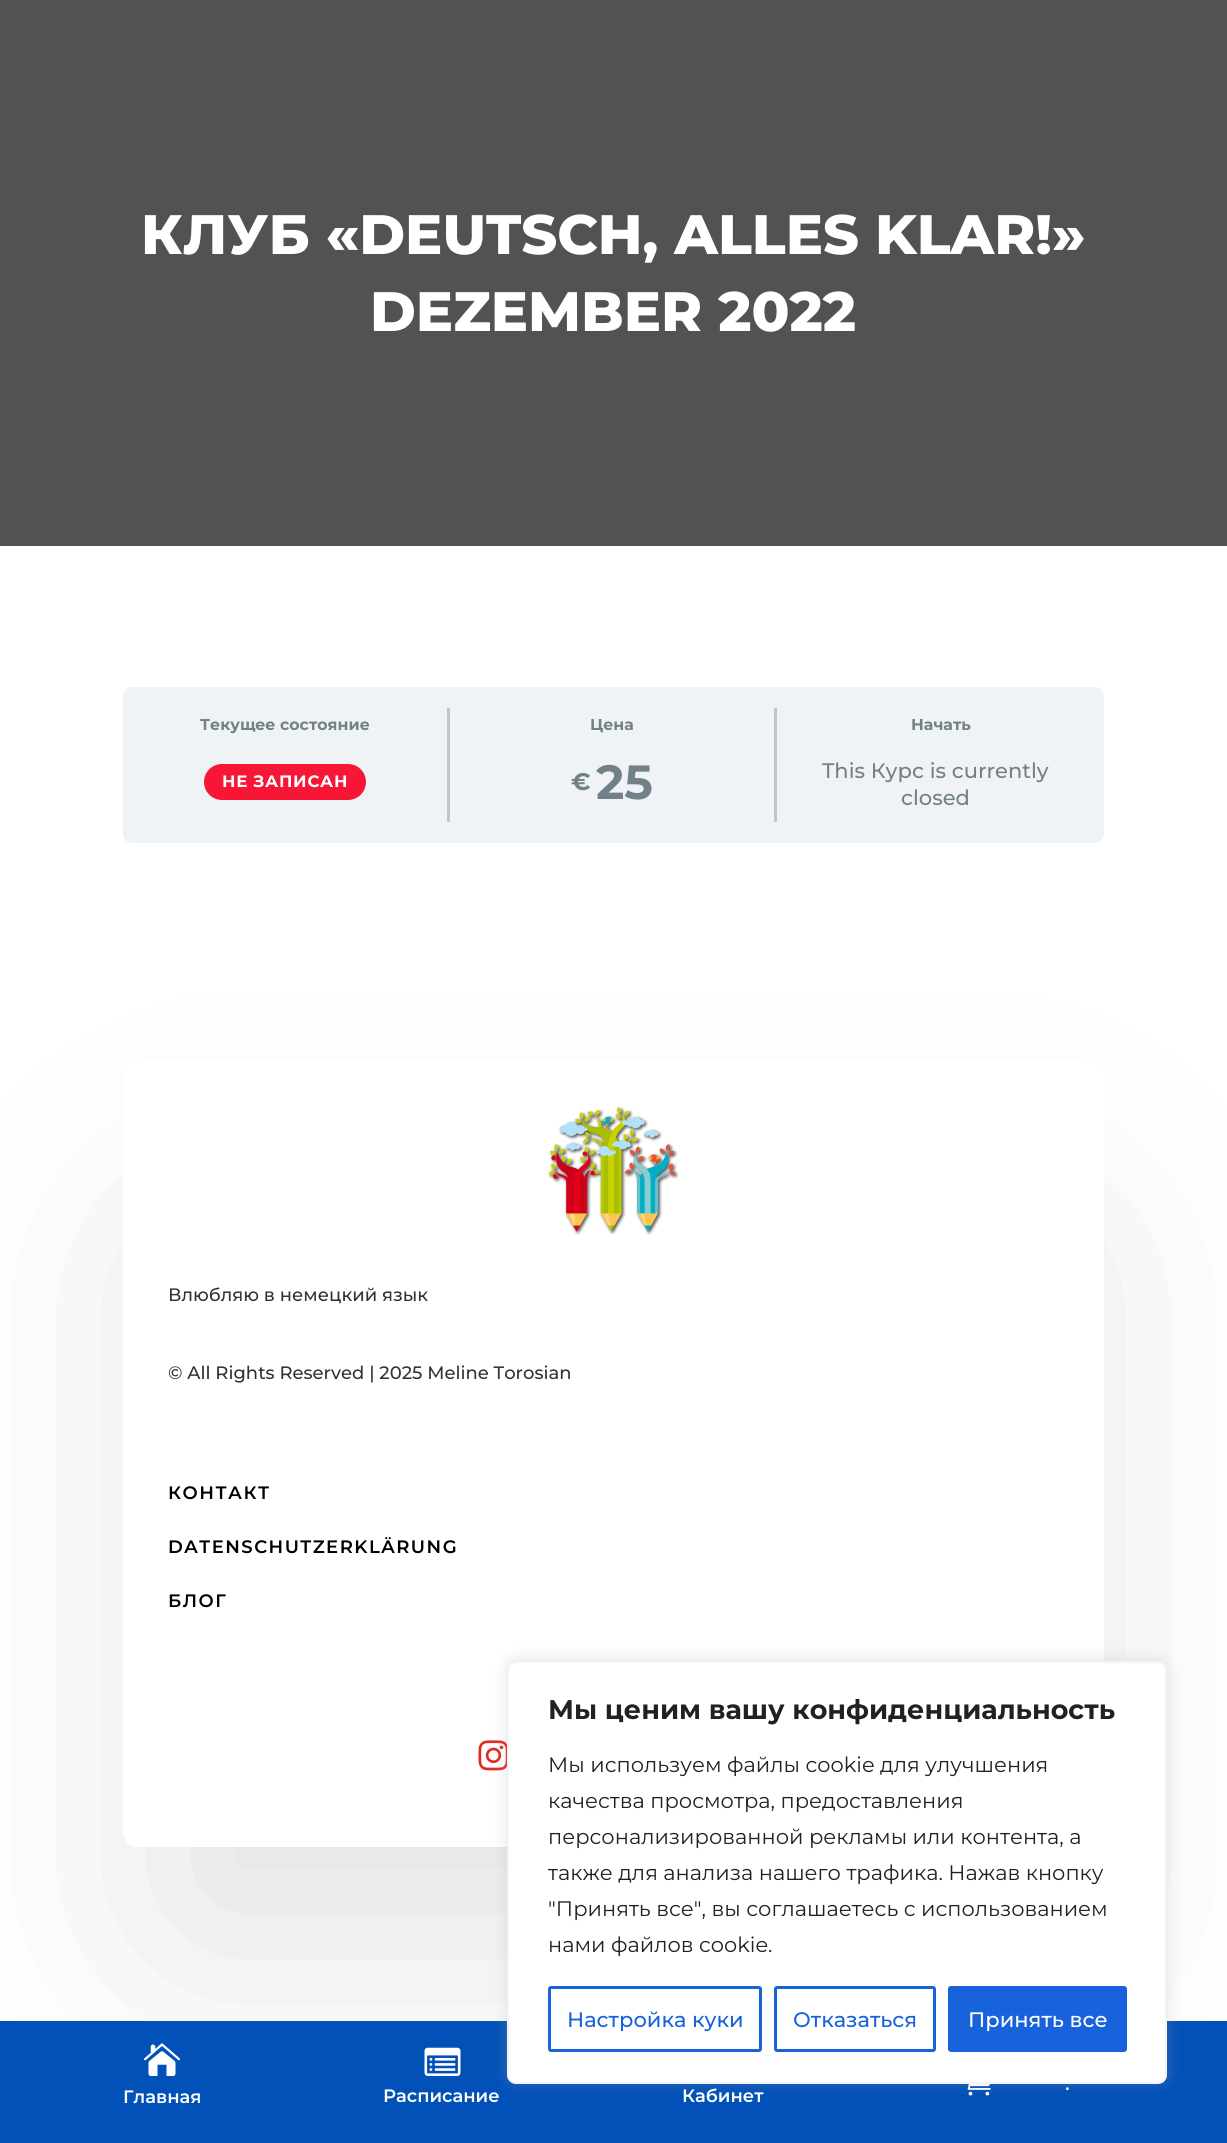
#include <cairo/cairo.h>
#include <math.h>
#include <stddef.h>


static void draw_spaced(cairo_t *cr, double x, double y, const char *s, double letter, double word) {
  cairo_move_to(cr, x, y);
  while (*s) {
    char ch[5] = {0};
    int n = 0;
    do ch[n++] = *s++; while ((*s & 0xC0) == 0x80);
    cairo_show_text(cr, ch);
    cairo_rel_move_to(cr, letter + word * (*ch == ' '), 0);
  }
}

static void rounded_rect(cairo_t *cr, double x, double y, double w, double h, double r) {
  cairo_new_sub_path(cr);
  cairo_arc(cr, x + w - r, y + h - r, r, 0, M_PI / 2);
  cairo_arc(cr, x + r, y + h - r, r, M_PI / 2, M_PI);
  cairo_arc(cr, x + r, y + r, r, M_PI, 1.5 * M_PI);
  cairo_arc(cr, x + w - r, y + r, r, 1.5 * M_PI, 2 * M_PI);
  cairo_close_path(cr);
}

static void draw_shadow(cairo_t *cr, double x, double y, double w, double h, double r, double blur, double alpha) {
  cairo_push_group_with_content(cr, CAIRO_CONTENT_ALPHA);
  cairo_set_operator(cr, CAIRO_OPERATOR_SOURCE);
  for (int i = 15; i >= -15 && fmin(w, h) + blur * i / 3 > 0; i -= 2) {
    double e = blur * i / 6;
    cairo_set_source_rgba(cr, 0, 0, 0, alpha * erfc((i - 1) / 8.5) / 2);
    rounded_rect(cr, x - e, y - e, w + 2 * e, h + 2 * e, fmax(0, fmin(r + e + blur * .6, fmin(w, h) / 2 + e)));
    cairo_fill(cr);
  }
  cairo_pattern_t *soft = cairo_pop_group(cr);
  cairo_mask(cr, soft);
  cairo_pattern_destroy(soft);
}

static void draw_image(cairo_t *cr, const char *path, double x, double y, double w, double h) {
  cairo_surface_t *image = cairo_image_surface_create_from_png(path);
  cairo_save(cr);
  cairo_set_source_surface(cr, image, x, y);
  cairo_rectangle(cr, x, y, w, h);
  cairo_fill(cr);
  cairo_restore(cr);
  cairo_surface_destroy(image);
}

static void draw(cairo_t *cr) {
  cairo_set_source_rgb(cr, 1, 1, 1);
  cairo_paint(cr);
  cairo_set_source_rgb(cr, 82 / 255.0, 82 / 255.0, 82 / 255.0);
  cairo_rectangle(cr, 0, 0, 1227, 546);
  cairo_fill(cr);
  cairo_set_source_rgb(cr, 240 / 255.0, 243 / 255.0, 246 / 255.0);
  rounded_rect(cr, 123, 687, 981, 156, 9);
  cairo_fill(cr);
  cairo_set_source_rgb(cr, 190 / 255.0, 197 / 255.0, 203 / 255.0);
  cairo_rectangle(cr, 447, 708, 3, 114);
  cairo_fill(cr);
  cairo_set_source_rgb(cr, 247 / 255.0, 22 / 255.0, 53 / 255.0);
  rounded_rect(cr, 204, 764, 162, 36, 18);
  cairo_fill(cr);
  cairo_set_source_rgb(cr, 190 / 255.0, 197 / 255.0, 203 / 255.0);
  cairo_rectangle(cr, 774, 708, 3, 114);
  cairo_fill(cr);
  cairo_set_source_rgb(cr, 0, 0, 0);
  draw_shadow(cr, 168, 1239, 891, 698, 0, 135, 0.12);
  cairo_set_source_rgb(cr, 1, 1, 1);
  rounded_rect(cr, 123, 1059, 981, 788, 15);
  cairo_fill(cr);
  draw_image(cr, "images/1.png", 548, 1106, 131, 129);
  draw_image(cr, "images/2.png", 478, 1740, 29, 31);
  cairo_set_source_rgb(cr, 2 / 255.0, 81 / 255.0, 184 / 255.0);
  cairo_rectangle(cr, 0, 2021, 1227, 122);
  cairo_fill(cr);
  draw_image(cr, "images/3.png", 144, 2043, 36, 33);
  draw_image(cr, "images/4.png", 424, 2047, 37, 29);
  draw_image(cr, "images/5.png", 967, 2084, 24, 12);
  cairo_set_source_rgb(cr, 172 / 255.0, 171 / 255.0, 171 / 255.0);
  draw_shadow(cr, 507, 1659, 660, 423, 9, 7.5, 0.3);
  cairo_set_source_rgb(cr, 1, 1, 1);
  rounded_rect(cr, 508, 1662, 658, 421, 8);
  cairo_fill_preserve(cr);
  cairo_set_source_rgb(cr, 244 / 255.0, 244 / 255.0, 244 / 255.0);
  cairo_stroke(cr);
  rounded_rect(cr, 549.5, 1987.5, 211, 63, 1.5);
  cairo_set_source_rgb(cr, 24 / 255.0, 99 / 255.0, 220 / 255.0);
  cairo_set_line_width(cr, 3);
  cairo_stroke(cr);
  rounded_rect(cr, 775.5, 1987.5, 159, 63, 1.5);
  cairo_stroke(cr);
  rounded_rect(cr, 949.5, 1987.5, 176, 63, 1.5);
  cairo_fill_preserve(cr);
  cairo_stroke(cr);
  cairo_select_font_face(cr, "Montserrat ExtraBold", CAIRO_FONT_SLANT_NORMAL, CAIRO_FONT_WEIGHT_NORMAL);
  cairo_set_font_size(cr, 55.5);
  cairo_set_source_rgb(cr, 1, 1, 1);
  cairo_move_to(cr, 141, 254);
  cairo_show_text(cr, "КЛУБ «DEUTSCH, ALLES KLAR!»");
  cairo_move_to(cr, 370, 331);
  cairo_show_text(cr, "DEZEMBER 2022");
  cairo_select_font_face(cr, "Montserrat", CAIRO_FONT_SLANT_NORMAL, CAIRO_FONT_WEIGHT_BOLD);
  cairo_set_font_size(cr, 15.75);
  cairo_set_source_rgb(cr, 114 / 255.0, 129 / 255.0, 136 / 255.0);
  cairo_move_to(cr, 200, 730);
  cairo_show_text(cr, "Текущее состояние");
  cairo_set_font_size(cr, 16.5);
  cairo_set_source_rgb(cr, 1, 1, 1);
  draw_spaced(cr, 222, 787, "НЕ ЗАПИСАН", 0.75, 0);
  cairo_set_font_size(cr, 15.75);
  cairo_set_source_rgb(cr, 114 / 255.0, 129 / 255.0, 136 / 255.0);
  cairo_move_to(cr, 590, 730);
  cairo_show_text(cr, "Цена");
  cairo_set_font_size(cr, 24);
  cairo_move_to(cr, 571, 790);
  cairo_show_text(cr, "€");
  cairo_set_font_size(cr, 48);
  cairo_move_to(cr, 596, 799);
  cairo_show_text(cr, "25");
  cairo_set_font_size(cr, 15.75);
  cairo_move_to(cr, 911, 730);
  cairo_show_text(cr, "Начать");
  cairo_select_font_face(cr, "Montserrat Medium", CAIRO_FONT_SLANT_NORMAL, CAIRO_FONT_WEIGHT_NORMAL);
  cairo_set_font_size(cr, 21);
  cairo_move_to(cr, 822, 778);
  cairo_show_text(cr, "This Курс is currently");
  cairo_move_to(cr, 901, 805);
  cairo_show_text(cr, "closed");
  cairo_set_font_size(cr, 18);
  cairo_set_source_rgb(cr, 51 / 255.0, 51 / 255.0, 51 / 255.0);
  cairo_move_to(cr, 168, 1301);
  cairo_show_text(cr, "Влюбляю в немецкий язык");
  cairo_move_to(cr, 168, 1379);
  cairo_show_text(cr, "© All Rights Reserved | 2025 Meline Torosian");
  cairo_select_font_face(cr, "Montserrat SemiBold", CAIRO_FONT_SLANT_NORMAL, CAIRO_FONT_WEIGHT_NORMAL);
  cairo_set_source_rgb(cr, 0, 0, 0);
  draw_spaced(cr, 168, 1499, "КОНТАКТ", 1.5, 0);
  draw_spaced(cr, 168, 1553, "DATENSCHUTZERKLÄRUNG", 1.5, 0);
  draw_spaced(cr, 168, 1607, "БЛОГ", 1.5, 0);
  cairo_set_source_rgb(cr, 1, 1, 1);
  cairo_move_to(cr, 123, 2103);
  cairo_show_text(cr, "Главная");
  cairo_move_to(cr, 383, 2102);
  cairo_show_text(cr, "Расписание");
  cairo_move_to(cr, 682, 2102);
  cairo_show_text(cr, "Кабинет");
  cairo_select_font_face(cr, "Montserrat Medium", CAIRO_FONT_SLANT_NORMAL, CAIRO_FONT_WEIGHT_NORMAL);
  cairo_set_font_size(cr, 21);
  cairo_move_to(cr, 1065, 2090);
  cairo_show_text(cr, ".");
  cairo_select_font_face(cr, "Montserrat", CAIRO_FONT_SLANT_NORMAL, CAIRO_FONT_WEIGHT_BOLD);
  cairo_set_font_size(cr, 27);
  cairo_set_source_rgb(cr, 33 / 255.0, 33 / 255.0, 33 / 255.0);
  cairo_move_to(cr, 548, 1719);
  cairo_show_text(cr, "Мы ценим вашу конфиденциальность");
  cairo_select_font_face(cr, "Montserrat", CAIRO_FONT_SLANT_NORMAL, CAIRO_FONT_WEIGHT_NORMAL);
  cairo_set_font_size(cr, 21);
  cairo_move_to(cr, 548, 1772);
  cairo_show_text(cr, "Мы используем файлы cookie для улучшения");
  cairo_move_to(cr, 548, 1808);
  cairo_show_text(cr, "качества просмотра, предоставления");
  cairo_move_to(cr, 548, 1844);
  cairo_show_text(cr, "персонализированной рекламы или контента, а");
  cairo_move_to(cr, 548, 1880);
  cairo_show_text(cr, "также для анализа нашего трафика. Нажав кнопку");
  cairo_move_to(cr, 548, 1916);
  cairo_show_text(cr, "\"Принять все\", вы соглашаетесь с использованием");
  cairo_move_to(cr, 548, 1952);
  cairo_show_text(cr, "нами файлов cookie.");
  cairo_select_font_face(cr, "Montserrat Medium", CAIRO_FONT_SLANT_NORMAL, CAIRO_FONT_WEIGHT_NORMAL);
  cairo_set_source_rgb(cr, 24 / 255.0, 99 / 255.0, 220 / 255.0);
  cairo_move_to(cr, 567, 2027);
  cairo_show_text(cr, "Настройка куки");
  cairo_move_to(cr, 793, 2027);
  cairo_show_text(cr, "Отказаться");
  cairo_set_source_rgb(cr, 1, 1, 1);
  cairo_move_to(cr, 968, 2027);
  cairo_show_text(cr, "Принять все");
}

int main(void) {
  cairo_surface_t *surface = cairo_image_surface_create(CAIRO_FORMAT_RGB24, 1227, 2143);
  cairo_t *cr = cairo_create(surface);
  cairo_font_options_t *options = cairo_font_options_create();
  cairo_font_options_set_hint_metrics(options, CAIRO_HINT_METRICS_OFF);
  cairo_font_options_set_hint_style(options, CAIRO_HINT_STYLE_NONE);
  cairo_set_font_options(cr, options);
  cairo_set_miter_limit(cr, 4);
  draw(cr);
  cairo_surface_write_to_png(surface, "out.png");
  cairo_font_options_destroy(options);
  cairo_destroy(cr);
  cairo_surface_destroy(surface);
  return 0;
}
